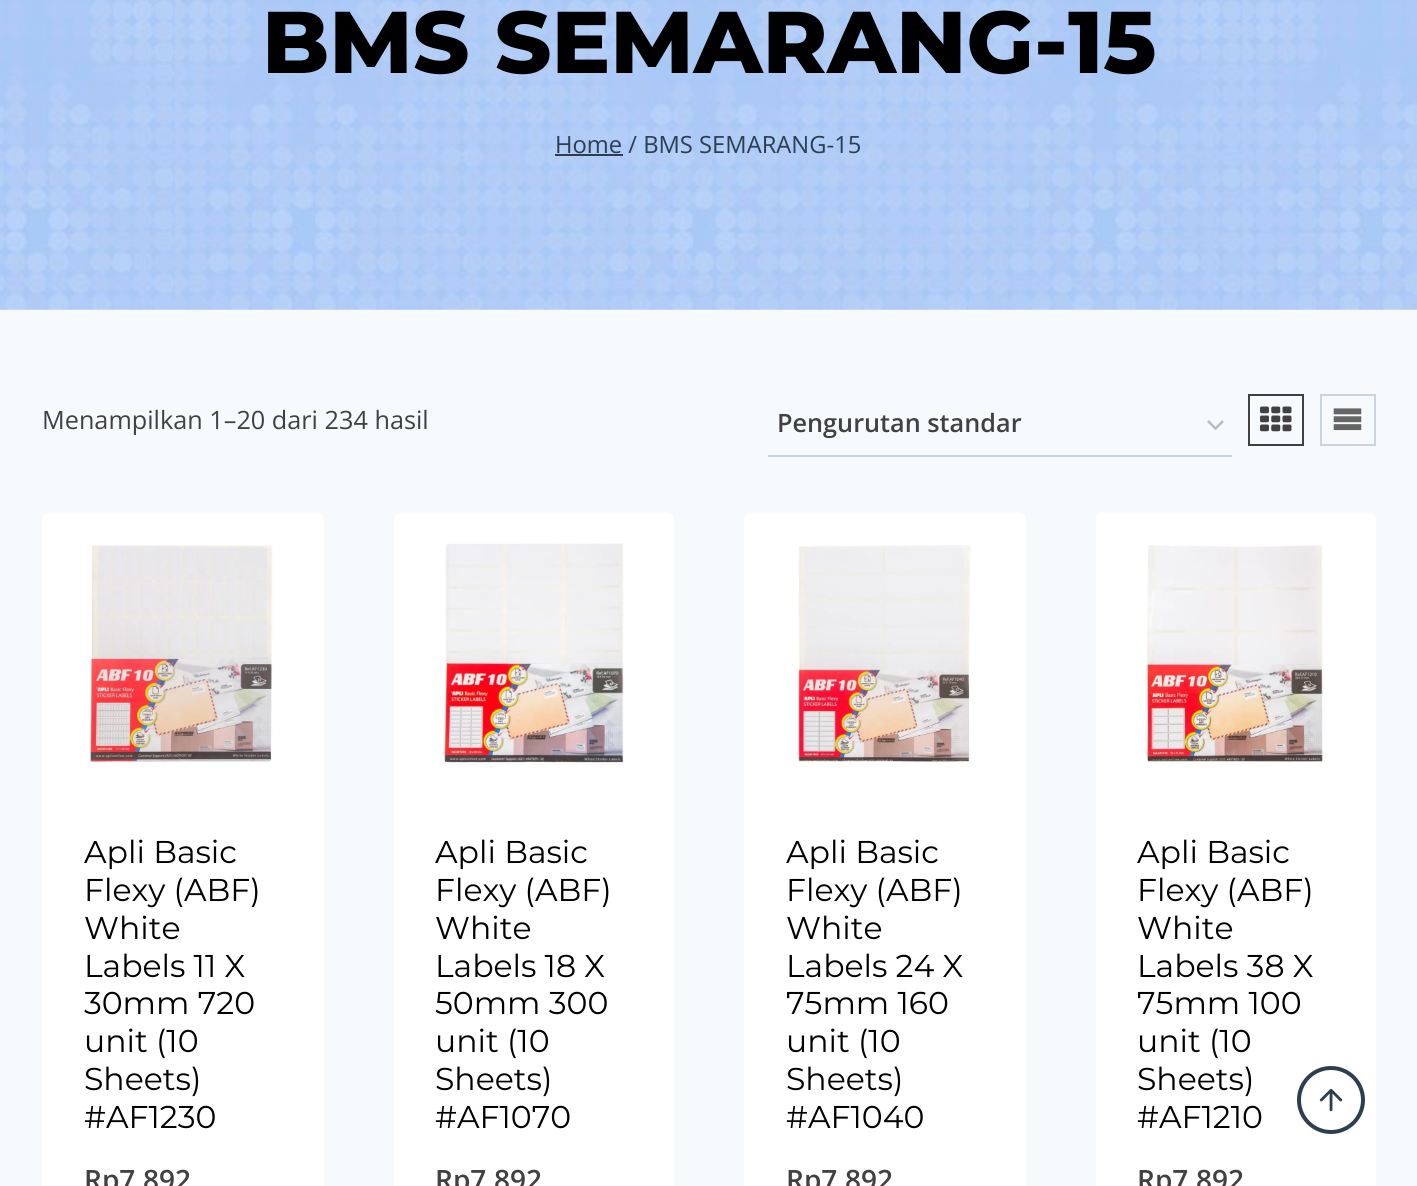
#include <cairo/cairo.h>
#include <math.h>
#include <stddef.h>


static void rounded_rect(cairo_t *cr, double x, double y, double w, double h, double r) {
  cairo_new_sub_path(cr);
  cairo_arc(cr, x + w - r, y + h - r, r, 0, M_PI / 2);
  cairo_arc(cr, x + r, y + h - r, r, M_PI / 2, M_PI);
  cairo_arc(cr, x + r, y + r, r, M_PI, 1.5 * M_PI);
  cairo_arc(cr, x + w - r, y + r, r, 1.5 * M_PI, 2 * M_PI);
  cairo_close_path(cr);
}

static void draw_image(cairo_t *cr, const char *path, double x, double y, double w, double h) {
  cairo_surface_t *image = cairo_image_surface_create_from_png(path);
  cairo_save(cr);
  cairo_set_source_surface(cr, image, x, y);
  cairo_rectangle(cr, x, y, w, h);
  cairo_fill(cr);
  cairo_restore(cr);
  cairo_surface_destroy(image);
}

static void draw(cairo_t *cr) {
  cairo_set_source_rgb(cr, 247 / 255.0, 250 / 255.0, 252 / 255.0);
  cairo_paint(cr);
  draw_image(cr, "images/1.png", 0, 0, 1417, 310);
  cairo_set_source_rgb(cr, 45 / 255.0, 62 / 255.0, 80 / 255.0);
  cairo_rectangle(cr, 555, 154, 68, 2);
  cairo_fill(cr);
  cairo_new_path(cr);
  cairo_move_to(cr, 1208, 421);
  cairo_line_to(cr, 1215.5, 428.5);
  cairo_line_to(cr, 1223, 421);
  cairo_set_source_rgb(cr, 187 / 255.0, 187 / 255.0, 187 / 255.0);
  cairo_set_line_width(cr, 2.5);
  cairo_stroke(cr);
  cairo_set_source_rgb(cr, 203 / 255.0, 213 / 255.0, 224 / 255.0);
  cairo_rectangle(cr, 768, 455, 464, 2);
  cairo_fill(cr);
  cairo_rectangle(cr, 1249, 395, 54, 50);
  cairo_set_source_rgb(cr, 65 / 255.0, 65 / 255.0, 65 / 255.0);
  cairo_set_line_width(cr, 2);
  cairo_stroke(cr);
  draw_image(cr, "images/2.png", 1260, 406, 32, 26);
  cairo_rectangle(cr, 1321, 395, 54, 50);
  cairo_set_source_rgb(cr, 203 / 255.0, 213 / 255.0, 224 / 255.0);
  cairo_stroke(cr);
  draw_image(cr, "images/3.png", 1333, 408, 29, 23);
  cairo_set_source_rgb(cr, 1, 1, 1);
  rounded_rect(cr, 42, 513, 282, 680, 7);
  cairo_fill(cr);
  draw_image(cr, "images/4.png", 90, 544, 183, 220);
  rounded_rect(cr, 394, 513, 280, 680, 7);
  cairo_fill(cr);
  draw_image(cr, "images/5.png", 443, 543, 181, 222);
  rounded_rect(cr, 744, 513, 282, 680, 7);
  cairo_fill(cr);
  draw_image(cr, "images/6.png", 797, 545, 175, 218);
  rounded_rect(cr, 1096, 513, 280, 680, 7);
  cairo_fill(cr);
  draw_image(cr, "images/7.png", 1096, 514, 228, 249);
  cairo_arc(cr, 1331, 1100, 32, 0, 2 * M_PI);
  cairo_set_source_rgb(cr, 45 / 255.0, 62 / 255.0, 80 / 255.0);
  cairo_set_line_width(cr, 4);
  cairo_stroke(cr);
  draw_image(cr, "images/8.png", 1319, 1088, 24, 24);
  cairo_select_font_face(cr, "Montserrat ExtraBold", CAIRO_FONT_SLANT_NORMAL, CAIRO_FONT_WEIGHT_NORMAL);
  cairo_set_font_size(cr, 87.5);
  cairo_set_source_rgb(cr, 0, 0, 0);
  cairo_move_to(cr, 262, 73);
  cairo_show_text(cr, "BMS SEMARANG-15");
  cairo_select_font_face(cr, "Open Sans", CAIRO_FONT_SLANT_NORMAL, CAIRO_FONT_WEIGHT_NORMAL);
  cairo_set_font_size(cr, 23.75);
  cairo_set_source_rgb(cr, 45 / 255.0, 62 / 255.0, 80 / 255.0);
  cairo_move_to(cr, 555, 153);
  cairo_show_text(cr, "Home / BMS SEMARANG-15");
  cairo_set_font_size(cr, 25.25);
  cairo_set_source_rgb(cr, 65 / 255.0, 65 / 255.0, 65 / 255.0);
  cairo_move_to(cr, 42, 429);
  cairo_show_text(cr, "Menampilkan 1–20 dari 234 hasil");
  cairo_select_font_face(cr, "Open Sans SemiBold", CAIRO_FONT_SLANT_NORMAL, CAIRO_FONT_WEIGHT_NORMAL);
  cairo_move_to(cr, 777, 432);
  cairo_show_text(cr, "Pengurutan standar");
  cairo_select_font_face(cr, "Montserrat", CAIRO_FONT_SLANT_NORMAL, CAIRO_FONT_WEIGHT_NORMAL);
  cairo_set_font_size(cr, 31.5);
  cairo_set_source_rgb(cr, 0, 0, 0);
  cairo_move_to(cr, 84, 863);
  cairo_show_text(cr, "Apli Basic");
  cairo_move_to(cr, 84, 901);
  cairo_show_text(cr, "Flexy (ABF)");
  cairo_move_to(cr, 84, 939);
  cairo_show_text(cr, "White");
  cairo_move_to(cr, 84, 977);
  cairo_show_text(cr, "Labels 11 X");
  cairo_move_to(cr, 84, 1014);
  cairo_show_text(cr, "30mm 720");
  cairo_move_to(cr, 84, 1052);
  cairo_show_text(cr, "unit (10");
  cairo_move_to(cr, 84, 1090);
  cairo_show_text(cr, "Sheets)");
  cairo_move_to(cr, 84, 1128);
  cairo_show_text(cr, "#AF1230");
  cairo_select_font_face(cr, "Open Sans SemiBold", CAIRO_FONT_SLANT_NORMAL, CAIRO_FONT_WEIGHT_NORMAL);
  cairo_set_font_size(cr, 28);
  cairo_set_source_rgb(cr, 65 / 255.0, 65 / 255.0, 65 / 255.0);
  cairo_move_to(cr, 84, 1190);
  cairo_show_text(cr, "Rp7.892");
  cairo_select_font_face(cr, "Montserrat", CAIRO_FONT_SLANT_NORMAL, CAIRO_FONT_WEIGHT_NORMAL);
  cairo_set_font_size(cr, 31.5);
  cairo_set_source_rgb(cr, 0, 0, 0);
  cairo_move_to(cr, 435, 863);
  cairo_show_text(cr, "Apli Basic");
  cairo_move_to(cr, 435, 901);
  cairo_show_text(cr, "Flexy (ABF)");
  cairo_move_to(cr, 435, 939);
  cairo_show_text(cr, "White");
  cairo_move_to(cr, 435, 977);
  cairo_show_text(cr, "Labels 18 X");
  cairo_move_to(cr, 435, 1014);
  cairo_show_text(cr, "50mm 300");
  cairo_move_to(cr, 435, 1052);
  cairo_show_text(cr, "unit (10");
  cairo_move_to(cr, 435, 1090);
  cairo_show_text(cr, "Sheets)");
  cairo_move_to(cr, 435, 1128);
  cairo_show_text(cr, "#AF1070");
  cairo_select_font_face(cr, "Open Sans SemiBold", CAIRO_FONT_SLANT_NORMAL, CAIRO_FONT_WEIGHT_NORMAL);
  cairo_set_font_size(cr, 28);
  cairo_set_source_rgb(cr, 65 / 255.0, 65 / 255.0, 65 / 255.0);
  cairo_move_to(cr, 435, 1190);
  cairo_show_text(cr, "Rp7.892");
  cairo_select_font_face(cr, "Montserrat", CAIRO_FONT_SLANT_NORMAL, CAIRO_FONT_WEIGHT_NORMAL);
  cairo_set_font_size(cr, 31.5);
  cairo_set_source_rgb(cr, 0, 0, 0);
  cairo_move_to(cr, 786, 863);
  cairo_show_text(cr, "Apli Basic");
  cairo_move_to(cr, 786, 901);
  cairo_show_text(cr, "Flexy (ABF)");
  cairo_move_to(cr, 786, 939);
  cairo_show_text(cr, "White");
  cairo_move_to(cr, 786, 977);
  cairo_show_text(cr, "Labels 24 X");
  cairo_move_to(cr, 786, 1014);
  cairo_show_text(cr, "75mm 160");
  cairo_move_to(cr, 786, 1052);
  cairo_show_text(cr, "unit (10");
  cairo_move_to(cr, 786, 1090);
  cairo_show_text(cr, "Sheets)");
  cairo_move_to(cr, 786, 1128);
  cairo_show_text(cr, "#AF1040");
  cairo_select_font_face(cr, "Open Sans SemiBold", CAIRO_FONT_SLANT_NORMAL, CAIRO_FONT_WEIGHT_NORMAL);
  cairo_set_font_size(cr, 28);
  cairo_set_source_rgb(cr, 65 / 255.0, 65 / 255.0, 65 / 255.0);
  cairo_move_to(cr, 786, 1190);
  cairo_show_text(cr, "Rp7.892");
  cairo_select_font_face(cr, "Montserrat", CAIRO_FONT_SLANT_NORMAL, CAIRO_FONT_WEIGHT_NORMAL);
  cairo_set_font_size(cr, 31.5);
  cairo_set_source_rgb(cr, 0, 0, 0);
  cairo_move_to(cr, 1137, 863);
  cairo_show_text(cr, "Apli Basic");
  cairo_move_to(cr, 1137, 901);
  cairo_show_text(cr, "Flexy (ABF)");
  cairo_move_to(cr, 1137, 939);
  cairo_show_text(cr, "White");
  cairo_move_to(cr, 1137, 977);
  cairo_show_text(cr, "Labels 38 X");
  cairo_move_to(cr, 1137, 1014);
  cairo_show_text(cr, "75mm 100");
  cairo_move_to(cr, 1137, 1052);
  cairo_show_text(cr, "unit (10");
  cairo_move_to(cr, 1137, 1090);
  cairo_show_text(cr, "Sheets)");
  cairo_move_to(cr, 1137, 1128);
  cairo_show_text(cr, "#AF1210");
  cairo_select_font_face(cr, "Open Sans SemiBold", CAIRO_FONT_SLANT_NORMAL, CAIRO_FONT_WEIGHT_NORMAL);
  cairo_set_font_size(cr, 28);
  cairo_set_source_rgb(cr, 65 / 255.0, 65 / 255.0, 65 / 255.0);
  cairo_move_to(cr, 1137, 1190);
  cairo_show_text(cr, "Rp7.892");
}

int main(void) {
  cairo_surface_t *surface = cairo_image_surface_create(CAIRO_FORMAT_RGB24, 1417, 1186);
  cairo_t *cr = cairo_create(surface);
  cairo_font_options_t *options = cairo_font_options_create();
  cairo_font_options_set_hint_metrics(options, CAIRO_HINT_METRICS_OFF);
  cairo_font_options_set_hint_style(options, CAIRO_HINT_STYLE_NONE);
  cairo_set_font_options(cr, options);
  cairo_set_miter_limit(cr, 4);
  draw(cr);
  cairo_surface_write_to_png(surface, "out.png");
  cairo_font_options_destroy(options);
  cairo_destroy(cr);
  cairo_surface_destroy(surface);
  return 0;
}
